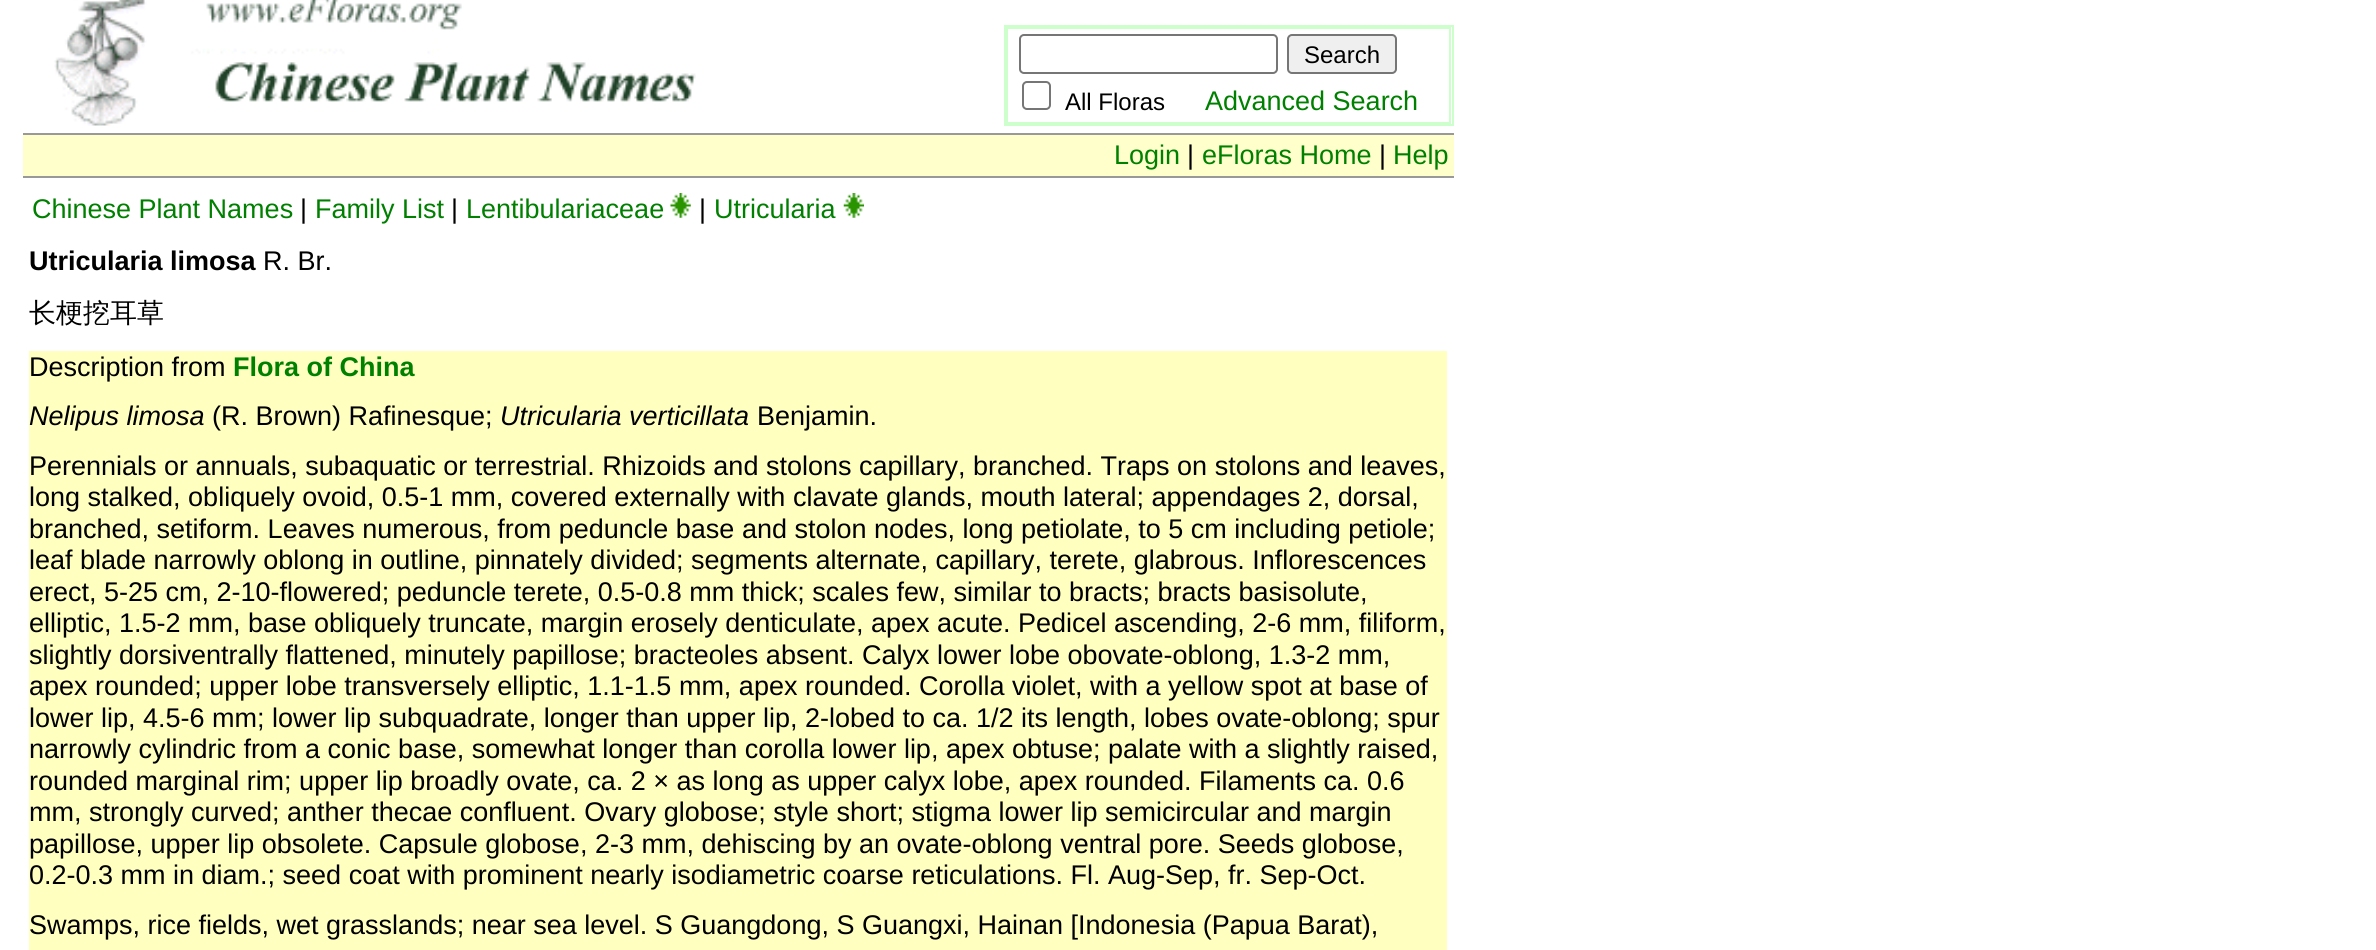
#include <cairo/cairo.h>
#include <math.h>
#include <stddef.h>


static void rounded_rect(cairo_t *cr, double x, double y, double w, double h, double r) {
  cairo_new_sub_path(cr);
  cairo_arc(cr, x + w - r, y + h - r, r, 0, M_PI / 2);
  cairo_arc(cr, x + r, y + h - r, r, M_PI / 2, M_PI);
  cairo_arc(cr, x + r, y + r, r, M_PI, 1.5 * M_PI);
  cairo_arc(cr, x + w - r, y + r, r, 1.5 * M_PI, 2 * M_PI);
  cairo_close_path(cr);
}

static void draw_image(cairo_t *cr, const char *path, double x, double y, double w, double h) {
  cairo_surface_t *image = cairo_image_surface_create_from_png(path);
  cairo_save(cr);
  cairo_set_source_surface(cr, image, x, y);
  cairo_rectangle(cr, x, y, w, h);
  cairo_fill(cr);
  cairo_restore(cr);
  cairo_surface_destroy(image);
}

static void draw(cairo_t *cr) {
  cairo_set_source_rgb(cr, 1, 1, 1);
  cairo_paint(cr);
  draw_image(cr, "images/1.png", 54, 0, 642, 126);
  cairo_rectangle(cr, 1005, 26, 448, 99);
  cairo_set_source_rgb(cr, 204 / 255.0, 1, 204 / 255.0);
  cairo_stroke(cr);
  cairo_rectangle(cr, 1007, 28, 443, 95);
  cairo_stroke(cr);
  rounded_rect(cr, 1020, 35, 257, 38, 4);
  cairo_set_source_rgb(cr, 118 / 255.0, 118 / 255.0, 118 / 255.0);
  cairo_stroke(cr);
  cairo_set_source_rgb(cr, 239 / 255.0, 239 / 255.0, 239 / 255.0);
  rounded_rect(cr, 1288, 35, 108, 38, 4);
  cairo_fill_preserve(cr);
  cairo_set_source_rgb(cr, 118 / 255.0, 118 / 255.0, 118 / 255.0);
  cairo_stroke(cr);
  rounded_rect(cr, 1023, 82, 27, 27, 4);
  cairo_stroke(cr);
  cairo_set_source_rgb(cr, 153 / 255.0, 153 / 255.0, 153 / 255.0);
  cairo_rectangle(cr, 23, 133, 1431, 2);
  cairo_fill(cr);
  cairo_set_source_rgb(cr, 1, 1, 204 / 255.0);
  cairo_rectangle(cr, 23, 135, 1431, 41);
  cairo_fill(cr);
  cairo_set_source_rgb(cr, 153 / 255.0, 153 / 255.0, 153 / 255.0);
  cairo_rectangle(cr, 23, 176, 1431, 2);
  cairo_fill(cr);
  draw_image(cr, "images/2.png", 670, 193, 21, 25);
  draw_image(cr, "images/3.png", 843, 193, 21, 25);
  cairo_set_source_rgb(cr, 1, 1, 192 / 255.0);
  cairo_rectangle(cr, 29, 351, 1418, 599);
  cairo_fill(cr);
  cairo_select_font_face(cr, "Liberation Sans", CAIRO_FONT_SLANT_NORMAL, CAIRO_FONT_WEIGHT_NORMAL);
  cairo_set_font_size(cr, 24);
  cairo_set_source_rgb(cr, 0, 0, 0);
  cairo_move_to(cr, 1304, 63);
  cairo_show_text(cr, "Search");
  cairo_move_to(cr, 1065, 110);
  cairo_show_text(cr, "All Floras");
  cairo_set_font_size(cr, 27);
  cairo_set_source_rgb(cr, 0, 128 / 255.0, 0);
  cairo_move_to(cr, 1205, 110);
  cairo_show_text(cr, "Advanced Search");
  cairo_move_to(cr, 1114, 164);
  cairo_show_text(cr, "Login");
  cairo_set_source_rgb(cr, 0, 0, 0);
  cairo_move_to(cr, 1187, 164);
  cairo_show_text(cr, "|");
  cairo_set_source_rgb(cr, 0, 128 / 255.0, 0);
  cairo_move_to(cr, 1202, 164);
  cairo_show_text(cr, "eFloras Home");
  cairo_set_source_rgb(cr, 0, 0, 0);
  cairo_move_to(cr, 1379, 164);
  cairo_show_text(cr, "|");
  cairo_set_source_rgb(cr, 0, 128 / 255.0, 0);
  cairo_move_to(cr, 1393, 164);
  cairo_show_text(cr, "Help");
  cairo_move_to(cr, 32, 218);
  cairo_show_text(cr, "Chinese Plant Names");
  cairo_set_source_rgb(cr, 0, 0, 0);
  cairo_move_to(cr, 300, 218);
  cairo_show_text(cr, "|");
  cairo_set_source_rgb(cr, 0, 128 / 255.0, 0);
  cairo_move_to(cr, 315, 218);
  cairo_show_text(cr, "Family List");
  cairo_set_source_rgb(cr, 0, 0, 0);
  cairo_move_to(cr, 451, 218);
  cairo_show_text(cr, "|");
  cairo_set_source_rgb(cr, 0, 128 / 255.0, 0);
  cairo_move_to(cr, 466, 218);
  cairo_show_text(cr, "Lentibulariaceae");
  cairo_set_source_rgb(cr, 0, 0, 0);
  cairo_move_to(cr, 699, 218);
  cairo_show_text(cr, "|");
  cairo_set_source_rgb(cr, 0, 128 / 255.0, 0);
  cairo_move_to(cr, 714, 218);
  cairo_show_text(cr, "Utricularia");
  cairo_select_font_face(cr, "Liberation Sans", CAIRO_FONT_SLANT_NORMAL, CAIRO_FONT_WEIGHT_BOLD);
  cairo_set_source_rgb(cr, 0, 0, 0);
  cairo_move_to(cr, 29, 270);
  cairo_show_text(cr, "Utricularia limosa");
  cairo_select_font_face(cr, "Liberation Sans", CAIRO_FONT_SLANT_NORMAL, CAIRO_FONT_WEIGHT_NORMAL);
  cairo_move_to(cr, 263, 270);
  cairo_show_text(cr, "R. Br.");
  cairo_select_font_face(cr, "WenQuanYi Zen Hei Medium", CAIRO_FONT_SLANT_NORMAL, CAIRO_FONT_WEIGHT_NORMAL);
  cairo_move_to(cr, 29, 322);
  cairo_show_text(cr, "长梗挖耳草");
  cairo_select_font_face(cr, "Liberation Sans", CAIRO_FONT_SLANT_NORMAL, CAIRO_FONT_WEIGHT_NORMAL);
  cairo_move_to(cr, 29, 376);
  cairo_show_text(cr, "Description from");
  cairo_select_font_face(cr, "Liberation Sans", CAIRO_FONT_SLANT_NORMAL, CAIRO_FONT_WEIGHT_BOLD);
  cairo_set_source_rgb(cr, 0, 128 / 255.0, 0);
  cairo_move_to(cr, 233, 376);
  cairo_show_text(cr, "Flora of China");
  cairo_select_font_face(cr, "Liberation Sans", CAIRO_FONT_SLANT_ITALIC, CAIRO_FONT_WEIGHT_NORMAL);
  cairo_set_source_rgb(cr, 0, 0, 0);
  cairo_move_to(cr, 29, 425);
  cairo_show_text(cr, "Nelipus limosa");
  cairo_select_font_face(cr, "Liberation Sans", CAIRO_FONT_SLANT_NORMAL, CAIRO_FONT_WEIGHT_NORMAL);
  cairo_move_to(cr, 212, 425);
  cairo_show_text(cr, "(R. Brown) Rafinesque;");
  cairo_select_font_face(cr, "Liberation Sans", CAIRO_FONT_SLANT_ITALIC, CAIRO_FONT_WEIGHT_NORMAL);
  cairo_move_to(cr, 500, 425);
  cairo_show_text(cr, "Utricularia verticillata");
  cairo_select_font_face(cr, "Liberation Sans", CAIRO_FONT_SLANT_NORMAL, CAIRO_FONT_WEIGHT_NORMAL);
  cairo_move_to(cr, 757, 425);
  cairo_show_text(cr, "Benjamin.");
  cairo_move_to(cr, 29, 475);
  cairo_show_text(cr, "Perennials or annuals, subaquatic or terrestrial. Rhizoids and stolons capillary, branched. Traps on stolons and leaves,");
  cairo_move_to(cr, 29, 506);
  cairo_show_text(cr, "long stalked, obliquely ovoid, 0.5-1 mm, covered externally with clavate glands, mouth lateral; appendages 2, dorsal,");
  cairo_move_to(cr, 29, 538);
  cairo_show_text(cr, "branched, setiform. Leaves numerous, from peduncle base and stolon nodes, long petiolate, to 5 cm including petiole;");
  cairo_move_to(cr, 29, 569);
  cairo_show_text(cr, "leaf blade narrowly oblong in outline, pinnately divided; segments alternate, capillary, terete, glabrous. Inflorescences");
  cairo_move_to(cr, 29, 601);
  cairo_show_text(cr, "erect, 5-25 cm, 2-10-flowered; peduncle terete, 0.5-0.8 mm thick; scales few, similar to bracts; bracts basisolute,");
  cairo_move_to(cr, 29, 632);
  cairo_show_text(cr, "elliptic, 1.5-2 mm, base obliquely truncate, margin erosely denticulate, apex acute. Pedicel ascending, 2-6 mm, filiform,");
  cairo_move_to(cr, 29, 664);
  cairo_show_text(cr, "slightly dorsiventrally flattened, minutely papillose; bracteoles absent. Calyx lower lobe obovate-oblong, 1.3-2 mm,");
  cairo_move_to(cr, 29, 695);
  cairo_show_text(cr, "apex rounded; upper lobe transversely elliptic, 1.1-1.5 mm, apex rounded. Corolla violet, with a yellow spot at base of");
  cairo_move_to(cr, 29, 727);
  cairo_show_text(cr, "lower lip, 4.5-6 mm; lower lip subquadrate, longer than upper lip, 2-lobed to ca. 1/2 its length, lobes ovate-oblong; spur");
  cairo_move_to(cr, 29, 758);
  cairo_show_text(cr, "narrowly cylindric from a conic base, somewhat longer than corolla lower lip, apex obtuse; palate with a slightly raised,");
  cairo_move_to(cr, 29, 790);
  cairo_show_text(cr, "rounded marginal rim; upper lip broadly ovate, ca. 2 × as long as upper calyx lobe, apex rounded. Filaments ca. 0.6");
  cairo_move_to(cr, 29, 821);
  cairo_show_text(cr, "mm, strongly curved; anther thecae confluent. Ovary globose; style short; stigma lower lip semicircular and margin");
  cairo_move_to(cr, 29, 853);
  cairo_show_text(cr, "papillose, upper lip obsolete. Capsule globose, 2-3 mm, dehiscing by an ovate-oblong ventral pore. Seeds globose,");
  cairo_move_to(cr, 29, 884);
  cairo_show_text(cr, "0.2-0.3 mm in diam.; seed coat with prominent nearly isodiametric coarse reticulations. Fl. Aug-Sep, fr. Sep-Oct.");
  cairo_move_to(cr, 29, 934);
  cairo_show_text(cr, "Swamps, rice fields, wet grasslands; near sea level. S Guangdong, S Guangxi, Hainan [Indonesia (Papua Barat),");
}

int main(void) {
  cairo_surface_t *surface = cairo_image_surface_create(CAIRO_FORMAT_RGB24, 2376, 950);
  cairo_t *cr = cairo_create(surface);
  cairo_font_options_t *options = cairo_font_options_create();
  cairo_font_options_set_hint_metrics(options, CAIRO_HINT_METRICS_OFF);
  cairo_font_options_set_hint_style(options, CAIRO_HINT_STYLE_NONE);
  cairo_set_font_options(cr, options);
  cairo_set_miter_limit(cr, 4);
  draw(cr);
  cairo_surface_write_to_png(surface, "out.png");
  cairo_font_options_destroy(options);
  cairo_destroy(cr);
  cairo_surface_destroy(surface);
  return 0;
}
